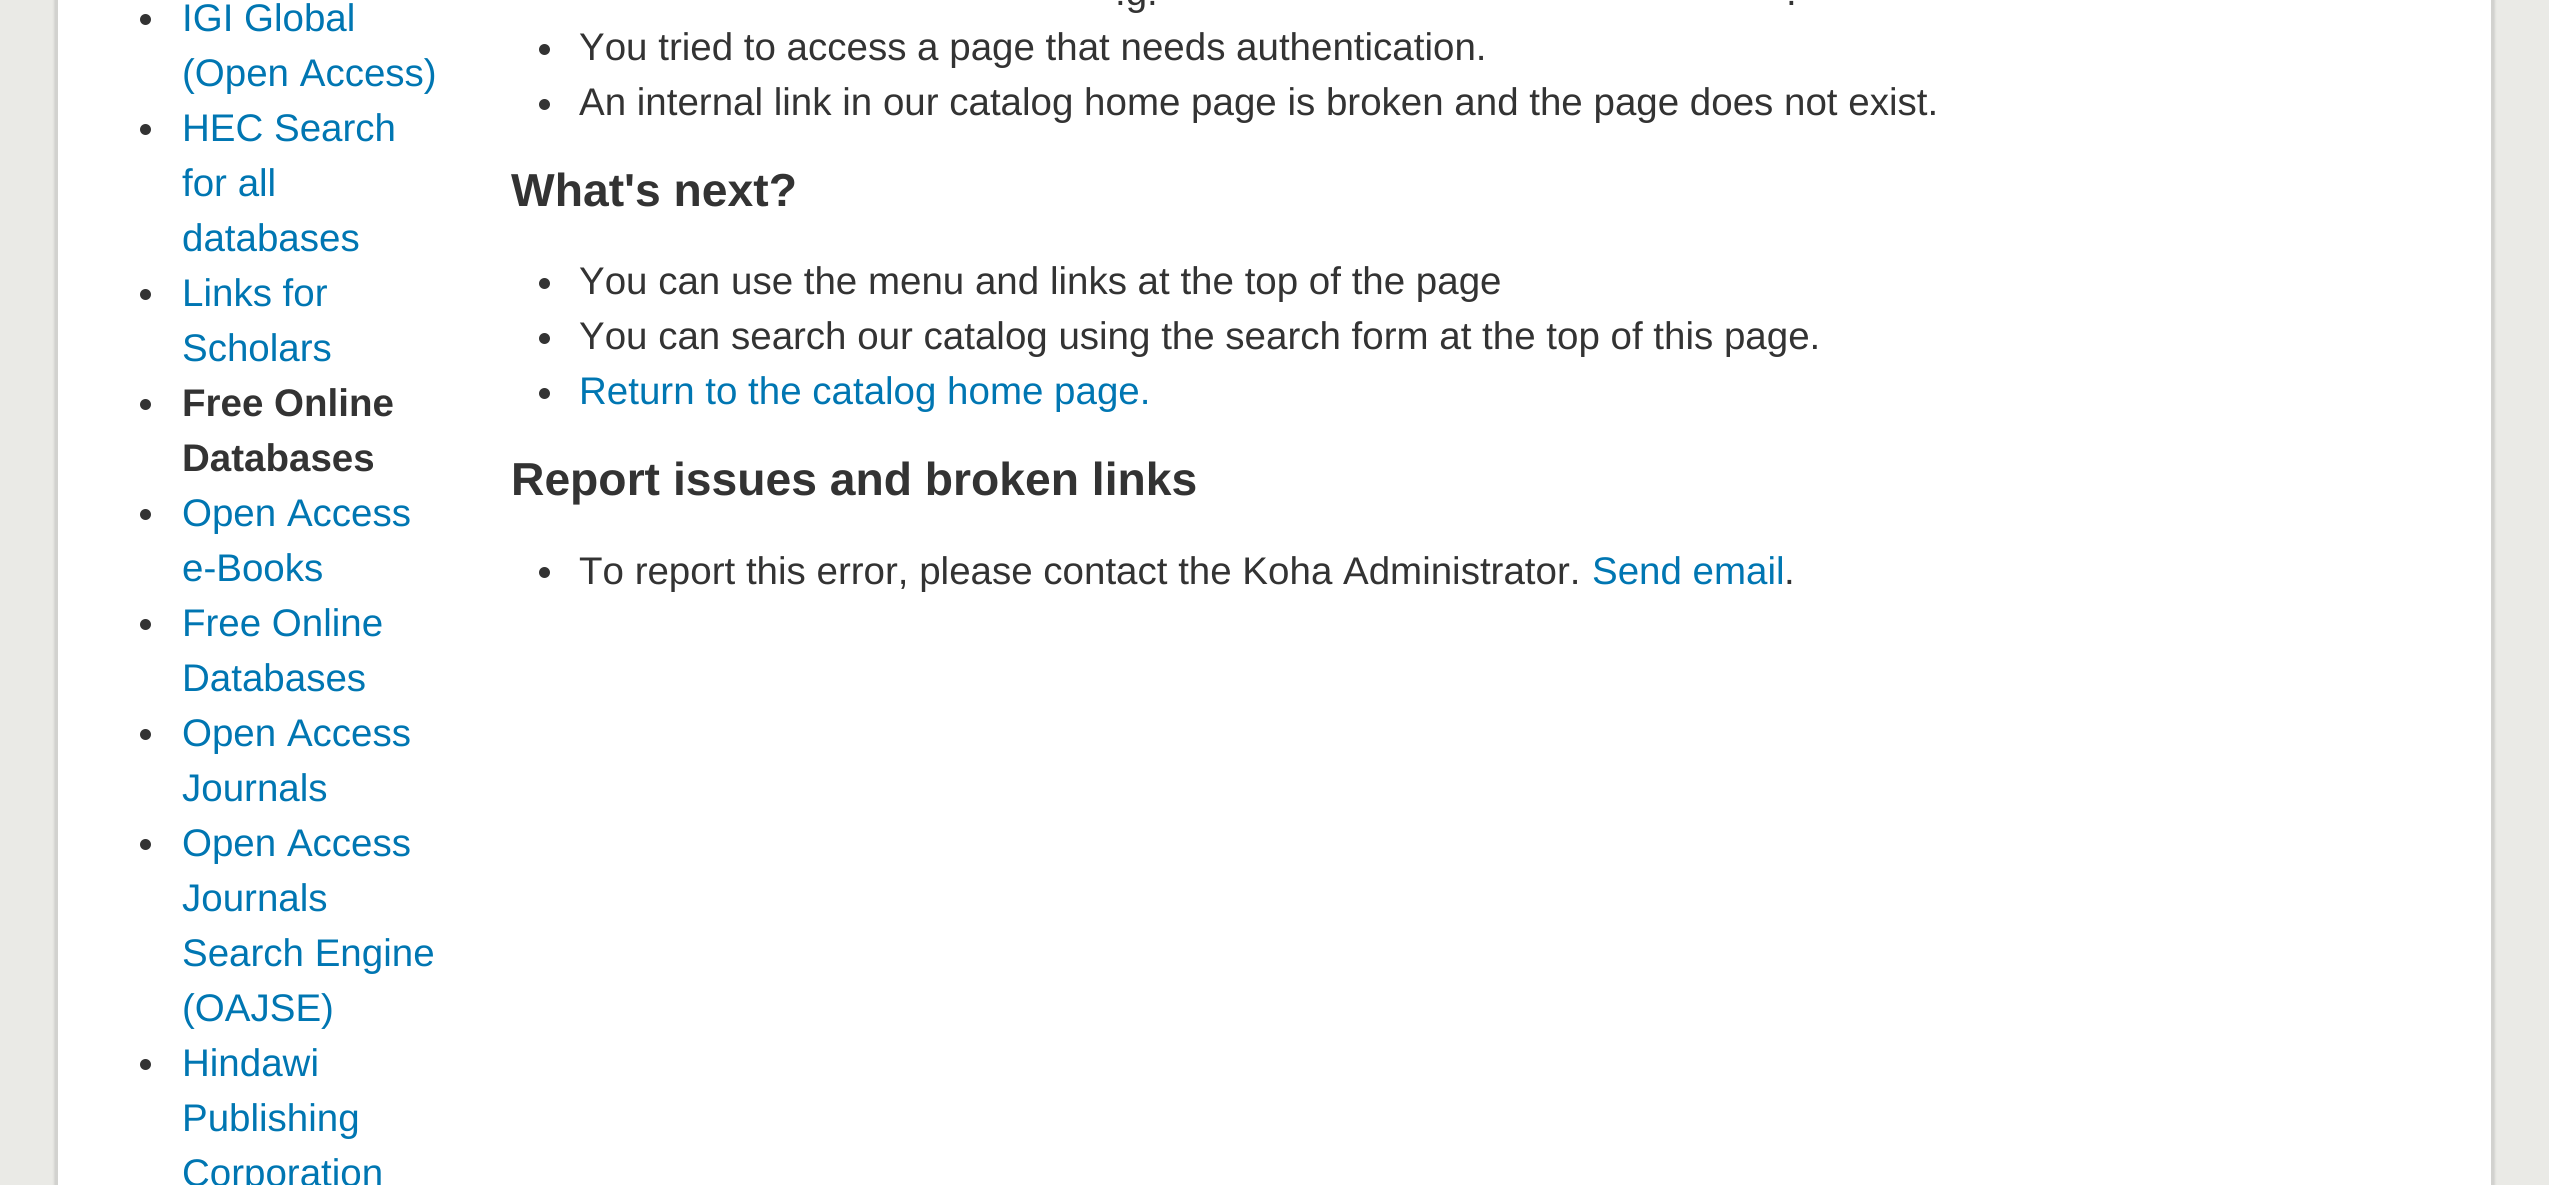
#include <cairo/cairo.h>
#include <math.h>
#include <stddef.h>


static void rounded_rect(cairo_t *cr, double x, double y, double w, double h, double r) {
  cairo_new_sub_path(cr);
  cairo_arc(cr, x + w - r, y + h - r, r, 0, M_PI / 2);
  cairo_arc(cr, x + r, y + h - r, r, M_PI / 2, M_PI);
  cairo_arc(cr, x + r, y + r, r, M_PI, 1.5 * M_PI);
  cairo_arc(cr, x + w - r, y + r, r, 1.5 * M_PI, 2 * M_PI);
  cairo_close_path(cr);
}

static void draw_shadow(cairo_t *cr, double x, double y, double w, double h, double r, double blur, double alpha) {
  cairo_push_group_with_content(cr, CAIRO_CONTENT_ALPHA);
  cairo_set_operator(cr, CAIRO_OPERATOR_SOURCE);
  for (int i = 15; i >= -15 && fmin(w, h) + blur * i / 3 > 0; i -= 2) {
    double e = blur * i / 6;
    cairo_set_source_rgba(cr, 0, 0, 0, alpha * erfc((i - 1) / 8.5) / 2);
    rounded_rect(cr, x - e, y - e, w + 2 * e, h + 2 * e, fmax(0, fmin(r + e + blur * .6, fmin(w, h) / 2 + e)));
    cairo_fill(cr);
  }
  cairo_pattern_t *soft = cairo_pop_group(cr);
  cairo_mask(cr, soft);
  cairo_pattern_destroy(soft);
}

static void draw(cairo_t *cr) {
  cairo_set_source_rgb(cr, 234 / 255.0, 234 / 255.0, 230 / 255.0);
  cairo_paint(cr);
  cairo_set_source_rgb(cr, 0, 0, 0);
  draw_shadow(cr, 55, -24, 2439, 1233, 19, 1.5, 0.2);
  cairo_set_source_rgb(cr, 1, 1, 1);
  cairo_rectangle(cr, 56.5, -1.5, 2436, 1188);
  cairo_fill_preserve(cr);
  cairo_set_source_rgb(cr, 210 / 255.0, 210 / 255.0, 207 / 255.0);
  cairo_set_line_width(cr, 3);
  cairo_stroke(cr);
  cairo_set_source_rgb(cr, 51 / 255.0, 51 / 255.0, 51 / 255.0);
  cairo_arc(cr, 145.5, 19.5, 5.5, 0, 2 * M_PI);
  cairo_fill(cr);
  cairo_arc(cr, 145.5, 129.5, 5.5, 0, 2 * M_PI);
  cairo_fill(cr);
  cairo_arc(cr, 145.5, 294.5, 5.5, 0, 2 * M_PI);
  cairo_fill(cr);
  cairo_arc(cr, 145.5, 404.5, 5.5, 0, 2 * M_PI);
  cairo_fill(cr);
  cairo_arc(cr, 145.5, 514.5, 5.5, 0, 2 * M_PI);
  cairo_fill(cr);
  cairo_arc(cr, 145.5, 624.5, 5.5, 0, 2 * M_PI);
  cairo_fill(cr);
  cairo_arc(cr, 145.5, 734.5, 5.5, 0, 2 * M_PI);
  cairo_fill(cr);
  cairo_arc(cr, 145.5, 844.5, 5.5, 0, 2 * M_PI);
  cairo_fill(cr);
  cairo_arc(cr, 145.5, 1064.5, 5.5, 0, 2 * M_PI);
  cairo_fill(cr);
  cairo_arc(cr, 544.5, 49.5, 5.5, 0, 2 * M_PI);
  cairo_fill(cr);
  cairo_arc(cr, 544.5, 104.5, 5.5, 0, 2 * M_PI);
  cairo_fill(cr);
  cairo_arc(cr, 544.5, 283.5, 5.5, 0, 2 * M_PI);
  cairo_fill(cr);
  cairo_arc(cr, 544.5, 338.5, 5.5, 0, 2 * M_PI);
  cairo_fill(cr);
  cairo_arc(cr, 544.5, 393.5, 5.5, 0, 2 * M_PI);
  cairo_fill(cr);
  cairo_arc(cr, 544.5, 572.5, 5.5, 0, 2 * M_PI);
  cairo_fill(cr);
  cairo_select_font_face(cr, "Liberation Sans", CAIRO_FONT_SLANT_NORMAL, CAIRO_FONT_WEIGHT_NORMAL);
  cairo_set_font_size(cr, 38.5);
  cairo_set_source_rgb(cr, 0, 118 / 255.0, 178 / 255.0);
  cairo_move_to(cr, 182, 31);
  cairo_show_text(cr, "IGI Global");
  cairo_move_to(cr, 182, 86);
  cairo_show_text(cr, "(Open Access)");
  cairo_move_to(cr, 182, 141);
  cairo_show_text(cr, "HEC Search");
  cairo_move_to(cr, 182, 196);
  cairo_show_text(cr, "for all");
  cairo_move_to(cr, 182, 251);
  cairo_show_text(cr, "databases");
  cairo_move_to(cr, 182, 306);
  cairo_show_text(cr, "Links for");
  cairo_move_to(cr, 182, 361);
  cairo_show_text(cr, "Scholars");
  cairo_select_font_face(cr, "Liberation Sans", CAIRO_FONT_SLANT_NORMAL, CAIRO_FONT_WEIGHT_BOLD);
  cairo_set_source_rgb(cr, 51 / 255.0, 51 / 255.0, 51 / 255.0);
  cairo_move_to(cr, 182, 416);
  cairo_show_text(cr, "Free Online");
  cairo_move_to(cr, 182, 471);
  cairo_show_text(cr, "Databases");
  cairo_select_font_face(cr, "Liberation Sans", CAIRO_FONT_SLANT_NORMAL, CAIRO_FONT_WEIGHT_NORMAL);
  cairo_set_source_rgb(cr, 0, 118 / 255.0, 178 / 255.0);
  cairo_move_to(cr, 182, 526);
  cairo_show_text(cr, "Open Access");
  cairo_move_to(cr, 182, 581);
  cairo_show_text(cr, "e-Books");
  cairo_move_to(cr, 182, 636);
  cairo_show_text(cr, "Free Online");
  cairo_move_to(cr, 182, 691);
  cairo_show_text(cr, "Databases");
  cairo_move_to(cr, 182, 746);
  cairo_show_text(cr, "Open Access");
  cairo_move_to(cr, 182, 801);
  cairo_show_text(cr, "Journals");
  cairo_move_to(cr, 182, 856);
  cairo_show_text(cr, "Open Access");
  cairo_move_to(cr, 182, 911);
  cairo_show_text(cr, "Journals");
  cairo_move_to(cr, 182, 966);
  cairo_show_text(cr, "Search Engine");
  cairo_move_to(cr, 182, 1021);
  cairo_show_text(cr, "(OAJSE)");
  cairo_move_to(cr, 182, 1076);
  cairo_show_text(cr, "Hindawi");
  cairo_move_to(cr, 182, 1131);
  cairo_show_text(cr, "Publishing");
  cairo_move_to(cr, 182, 1186);
  cairo_show_text(cr, "Corporation");
  cairo_set_source_rgb(cr, 51 / 255.0, 51 / 255.0, 51 / 255.0);
  cairo_move_to(cr, 1115, 5);
  cairo_show_text(cr, ".g.");
  cairo_move_to(cr, 1786, 5);
  cairo_show_text(cr, ".");
  cairo_move_to(cr, 579, 60);
  cairo_show_text(cr, "You tried to access a page that needs authentication.");
  cairo_move_to(cr, 579, 115);
  cairo_show_text(cr, "An internal link in our catalog home page is broken and the page does not exist.");
  cairo_select_font_face(cr, "Liberation Sans", CAIRO_FONT_SLANT_NORMAL, CAIRO_FONT_WEIGHT_BOLD);
  cairo_set_font_size(cr, 46.25);
  cairo_move_to(cr, 511, 206);
  cairo_show_text(cr, "What's next?");
  cairo_select_font_face(cr, "Liberation Sans", CAIRO_FONT_SLANT_NORMAL, CAIRO_FONT_WEIGHT_NORMAL);
  cairo_set_font_size(cr, 38.5);
  cairo_move_to(cr, 579, 294);
  cairo_show_text(cr, "You can use the menu and links at the top of the page");
  cairo_move_to(cr, 579, 349);
  cairo_show_text(cr, "You can search our catalog using the search form at the top of this page.");
  cairo_set_source_rgb(cr, 0, 118 / 255.0, 178 / 255.0);
  cairo_move_to(cr, 579, 404);
  cairo_show_text(cr, "Return to the catalog home page.");
  cairo_select_font_face(cr, "Liberation Sans", CAIRO_FONT_SLANT_NORMAL, CAIRO_FONT_WEIGHT_BOLD);
  cairo_set_font_size(cr, 46.25);
  cairo_set_source_rgb(cr, 51 / 255.0, 51 / 255.0, 51 / 255.0);
  cairo_move_to(cr, 511, 495);
  cairo_show_text(cr, "Report issues and broken links");
  cairo_select_font_face(cr, "Liberation Sans", CAIRO_FONT_SLANT_NORMAL, CAIRO_FONT_WEIGHT_NORMAL);
  cairo_set_font_size(cr, 38.5);
  cairo_move_to(cr, 579, 584);
  cairo_show_text(cr, "To report this error, please contact the Koha Administrator.");
  cairo_set_source_rgb(cr, 0, 118 / 255.0, 178 / 255.0);
  cairo_move_to(cr, 1592, 584);
  cairo_show_text(cr, "Send email");
  cairo_set_source_rgb(cr, 51 / 255.0, 51 / 255.0, 51 / 255.0);
  cairo_move_to(cr, 1784, 584);
  cairo_show_text(cr, ".");
}

int main(void) {
  cairo_surface_t *surface = cairo_image_surface_create(CAIRO_FORMAT_RGB24, 2549, 1185);
  cairo_t *cr = cairo_create(surface);
  cairo_font_options_t *options = cairo_font_options_create();
  cairo_font_options_set_hint_metrics(options, CAIRO_HINT_METRICS_OFF);
  cairo_font_options_set_hint_style(options, CAIRO_HINT_STYLE_NONE);
  cairo_set_font_options(cr, options);
  cairo_set_miter_limit(cr, 4);
  draw(cr);
  cairo_surface_write_to_png(surface, "out.png");
  cairo_font_options_destroy(options);
  cairo_destroy(cr);
  cairo_surface_destroy(surface);
  return 0;
}
